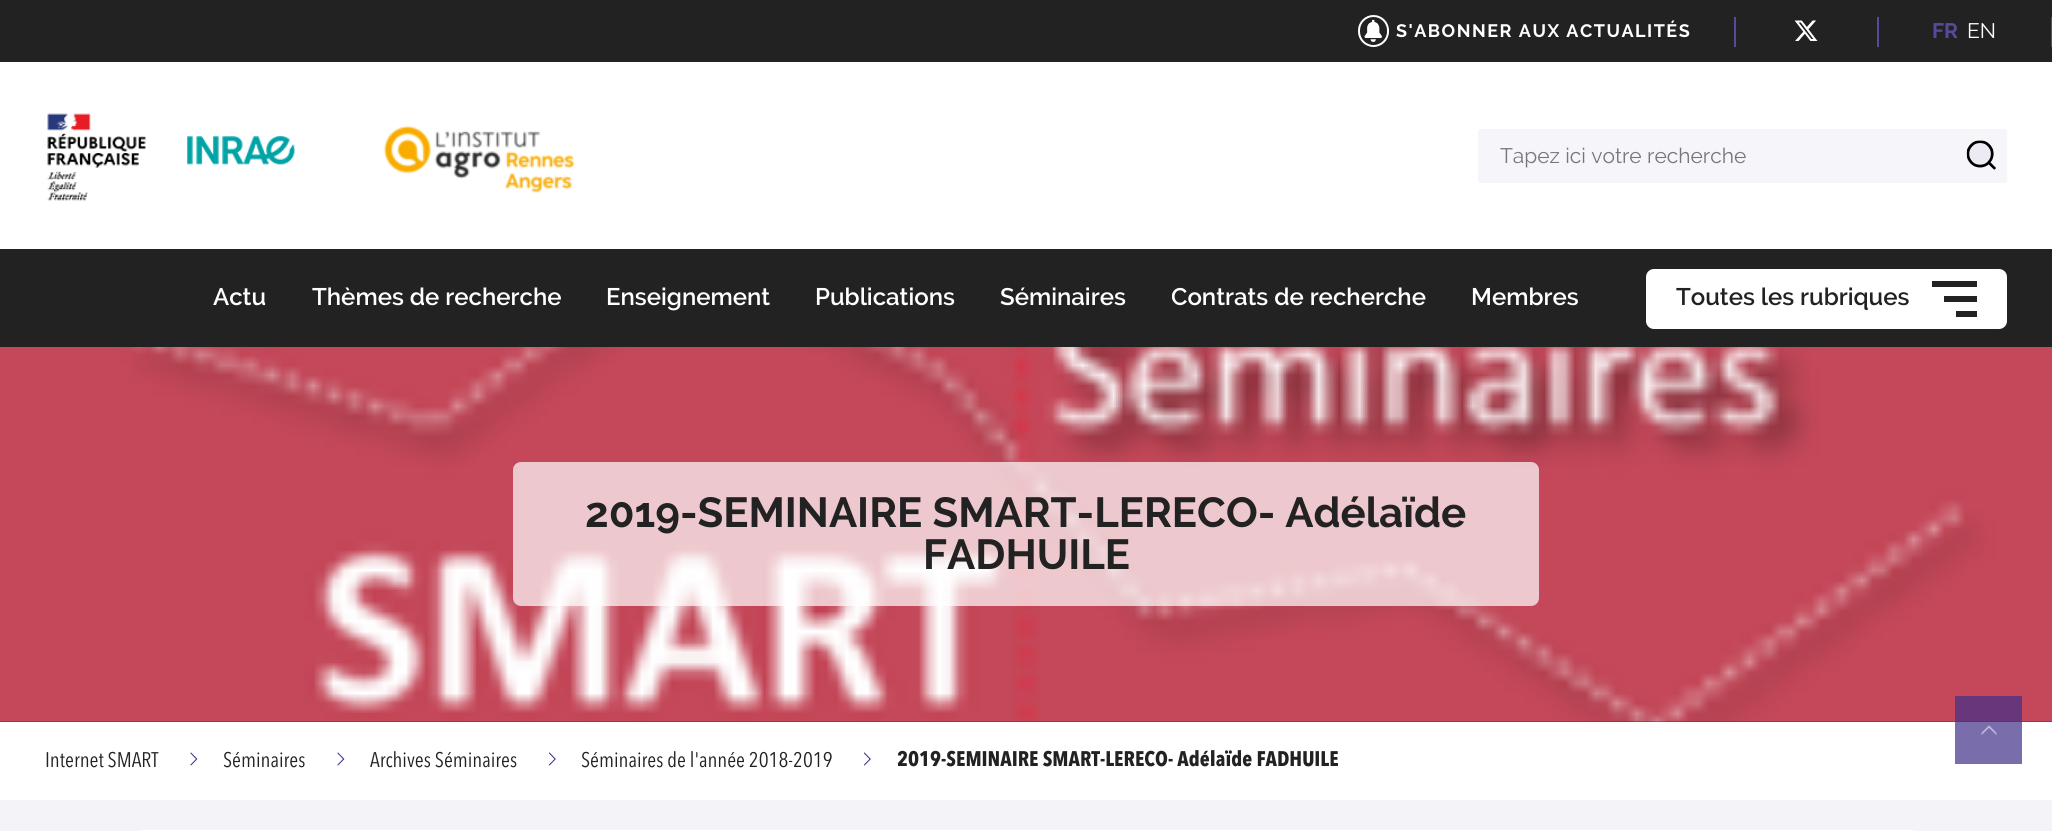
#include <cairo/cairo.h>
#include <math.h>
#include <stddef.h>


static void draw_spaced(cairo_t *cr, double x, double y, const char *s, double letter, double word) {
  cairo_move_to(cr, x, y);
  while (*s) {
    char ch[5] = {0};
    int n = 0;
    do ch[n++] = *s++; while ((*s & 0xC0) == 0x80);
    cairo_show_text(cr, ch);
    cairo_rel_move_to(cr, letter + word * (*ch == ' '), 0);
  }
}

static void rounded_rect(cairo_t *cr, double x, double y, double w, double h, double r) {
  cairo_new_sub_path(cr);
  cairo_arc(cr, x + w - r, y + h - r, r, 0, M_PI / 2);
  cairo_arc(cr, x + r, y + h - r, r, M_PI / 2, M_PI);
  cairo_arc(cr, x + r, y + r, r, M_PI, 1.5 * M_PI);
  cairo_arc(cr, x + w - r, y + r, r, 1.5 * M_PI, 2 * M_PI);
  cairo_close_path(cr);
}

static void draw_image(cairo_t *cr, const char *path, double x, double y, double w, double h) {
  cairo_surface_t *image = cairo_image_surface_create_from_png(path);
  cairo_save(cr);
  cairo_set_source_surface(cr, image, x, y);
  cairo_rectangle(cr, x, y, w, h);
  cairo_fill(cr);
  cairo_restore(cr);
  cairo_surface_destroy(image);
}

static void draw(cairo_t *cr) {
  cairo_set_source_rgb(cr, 1, 1, 1);
  cairo_paint(cr);
  cairo_set_source_rgb(cr, 34 / 255.0, 34 / 255.0, 34 / 255.0);
  cairo_rectangle(cr, 0, 0, 2052, 62);
  cairo_fill(cr);
  rounded_rect(cr, 1359, 16, 29, 30, 14.5);
  cairo_set_source_rgb(cr, 1, 1, 1);
  cairo_stroke(cr);
  draw_image(cr, "images/1.png", 1364, 19, 18, 23);
  cairo_set_source_rgb(cr, 89 / 255.0, 73 / 255.0, 155 / 255.0);
  cairo_rectangle(cr, 1734, 17, 2, 30);
  cairo_fill(cr);
  draw_image(cr, "images/2.png", 1794, 20, 24, 21);
  cairo_rectangle(cr, 1877, 17, 2, 30);
  cairo_fill(cr);
  cairo_rectangle(cr, 2051, 17, 1, 30);
  cairo_fill(cr);
  draw_image(cr, "images/3.png", 47, 113, 248, 88);
  draw_image(cr, "images/4.png", 383, 125, 192, 68);
  cairo_set_source_rgb(cr, 246 / 255.0, 245 / 255.0, 249 / 255.0);
  rounded_rect(cr, 1478, 129, 529, 54, 3);
  cairo_fill(cr);
  draw_image(cr, "images/5.png", 1966, 140, 30, 30);
  cairo_set_source_rgb(cr, 34 / 255.0, 34 / 255.0, 34 / 255.0);
  cairo_rectangle(cr, 0, 249, 2052, 98);
  cairo_fill(cr);
  cairo_set_source_rgb(cr, 1, 1, 1);
  rounded_rect(cr, 1646, 269, 361, 60, 8);
  cairo_fill(cr);
  cairo_set_source_rgb(cr, 34 / 255.0, 34 / 255.0, 34 / 255.0);
  cairo_rectangle(cr, 1932, 281, 45, 6);
  cairo_fill(cr);
  cairo_rectangle(cr, 1944, 296, 33, 6);
  cairo_fill(cr);
  cairo_rectangle(cr, 1956, 311, 21, 6);
  cairo_fill(cr);
  cairo_set_source_rgb(cr, 66 / 255.0, 48 / 255.0, 137 / 255.0);
  cairo_rectangle(cr, 0, 721, 2052, 1);
  cairo_fill(cr);
  draw_image(cr, "images/6.png", 0, 347, 2052, 375);
  cairo_set_source_rgba(cr, 1, 1, 1, 0.7);
  rounded_rect(cr, 513, 462, 1026, 144, 8);
  cairo_fill(cr);
  draw_image(cr, "images/7.png", 190, 752, 8, 14);
  draw_image(cr, "images/7.png", 337, 752, 8, 14);
  draw_image(cr, "images/8.png", 549, 752, 7, 14);
  draw_image(cr, "images/8.png", 864, 752, 7, 14);
  cairo_set_source_rgba(cr, 66 / 255.0, 48 / 255.0, 137 / 255.0, 0.7);
  cairo_rectangle(cr, 1955, 696, 67, 68);
  cairo_fill(cr);
  draw_image(cr, "images/9.png", 1981, 725, 16, 10);
  cairo_set_source_rgb(cr, 243 / 255.0, 243 / 255.0, 248 / 255.0);
  cairo_rectangle(cr, 0, 800, 2052, 31);
  cairo_fill(cr);
  cairo_set_source_rgb(cr, 1, 1, 1);
  rounded_rect(cr, 134, 830, 1785, 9, 8);
  cairo_fill(cr);
  cairo_select_font_face(cr, "Raleway", CAIRO_FONT_SLANT_NORMAL, CAIRO_FONT_WEIGHT_BOLD);
  cairo_set_font_size(cr, 18);
  draw_spaced(cr, 1396, 37, "S'ABONNER AUX ACTUALITÉS", 1.5, 0);
  cairo_set_font_size(cr, 21);
  cairo_set_source_rgb(cr, 89 / 255.0, 73 / 255.0, 155 / 255.0);
  cairo_move_to(cr, 1932, 38);
  cairo_show_text(cr, "FR");
  cairo_select_font_face(cr, "Raleway", CAIRO_FONT_SLANT_NORMAL, CAIRO_FONT_WEIGHT_NORMAL);
  cairo_set_source_rgb(cr, 1, 1, 1);
  cairo_move_to(cr, 1967, 38);
  cairo_show_text(cr, "EN");
  cairo_set_source_rgb(cr, 119 / 255.0, 118 / 255.0, 120 / 255.0);
  cairo_move_to(cr, 1500, 163);
  cairo_show_text(cr, "Tapez ici votre recherche");
  cairo_select_font_face(cr, "Raleway SemiBold", CAIRO_FONT_SLANT_NORMAL, CAIRO_FONT_WEIGHT_NORMAL);
  cairo_set_font_size(cr, 24);
  cairo_set_source_rgb(cr, 1, 1, 1);
  cairo_move_to(cr, 213, 305);
  cairo_show_text(cr, "Actu");
  cairo_move_to(cr, 312, 305);
  cairo_show_text(cr, "Thèmes de recherche");
  cairo_move_to(cr, 606, 305);
  cairo_show_text(cr, "Enseignement");
  cairo_move_to(cr, 815, 305);
  cairo_show_text(cr, "Publications");
  cairo_move_to(cr, 1000, 305);
  cairo_show_text(cr, "Séminaires");
  cairo_save(cr);
  cairo_rectangle(cr, 1172, 287, 255, 24);
  cairo_clip(cr);
  cairo_move_to(cr, 1171, 305);
  cairo_show_text(cr, "Contrats de recherche");
  cairo_restore(cr);
  cairo_move_to(cr, 1471, 305);
  cairo_show_text(cr, "Membres");
  cairo_set_source_rgb(cr, 34 / 255.0, 34 / 255.0, 34 / 255.0);
  cairo_move_to(cr, 1676, 305);
  cairo_show_text(cr, "Toutes les rubriques");
  cairo_select_font_face(cr, "Raleway", CAIRO_FONT_SLANT_NORMAL, CAIRO_FONT_WEIGHT_BOLD);
  cairo_set_font_size(cr, 42);
  cairo_move_to(cr, 585, 527);
  cairo_show_text(cr, "2019-SEMINAIRE SMART-LERECO- Adélaïde");
  cairo_move_to(cr, 923, 569);
  cairo_show_text(cr, "FADHUILE");
  cairo_select_font_face(cr, "Avenir Next", CAIRO_FONT_SLANT_NORMAL, CAIRO_FONT_WEIGHT_NORMAL);
  cairo_set_font_size(cr, 21);
  cairo_move_to(cr, 45, 767);
  cairo_show_text(cr, "Internet SMART");
  cairo_move_to(cr, 223, 767);
  cairo_show_text(cr, "Séminaires");
  cairo_move_to(cr, 370, 767);
  cairo_show_text(cr, "Archives Séminaires");
  cairo_move_to(cr, 581, 767);
  cairo_show_text(cr, "Séminaires de l'année 2018-2019");
  cairo_select_font_face(cr, "Avenir Next", CAIRO_FONT_SLANT_NORMAL, CAIRO_FONT_WEIGHT_BOLD);
  cairo_move_to(cr, 897, 766);
  cairo_show_text(cr, "2019-SEMINAIRE SMART-LERECO- Adélaïde FADHUILE");
}

int main(void) {
  cairo_surface_t *surface = cairo_image_surface_create(CAIRO_FORMAT_RGB24, 2052, 831);
  cairo_t *cr = cairo_create(surface);
  cairo_font_options_t *options = cairo_font_options_create();
  cairo_font_options_set_hint_metrics(options, CAIRO_HINT_METRICS_OFF);
  cairo_font_options_set_hint_style(options, CAIRO_HINT_STYLE_NONE);
  cairo_set_font_options(cr, options);
  cairo_set_miter_limit(cr, 4);
  draw(cr);
  cairo_surface_write_to_png(surface, "out.png");
  cairo_font_options_destroy(options);
  cairo_destroy(cr);
  cairo_surface_destroy(surface);
  return 0;
}
